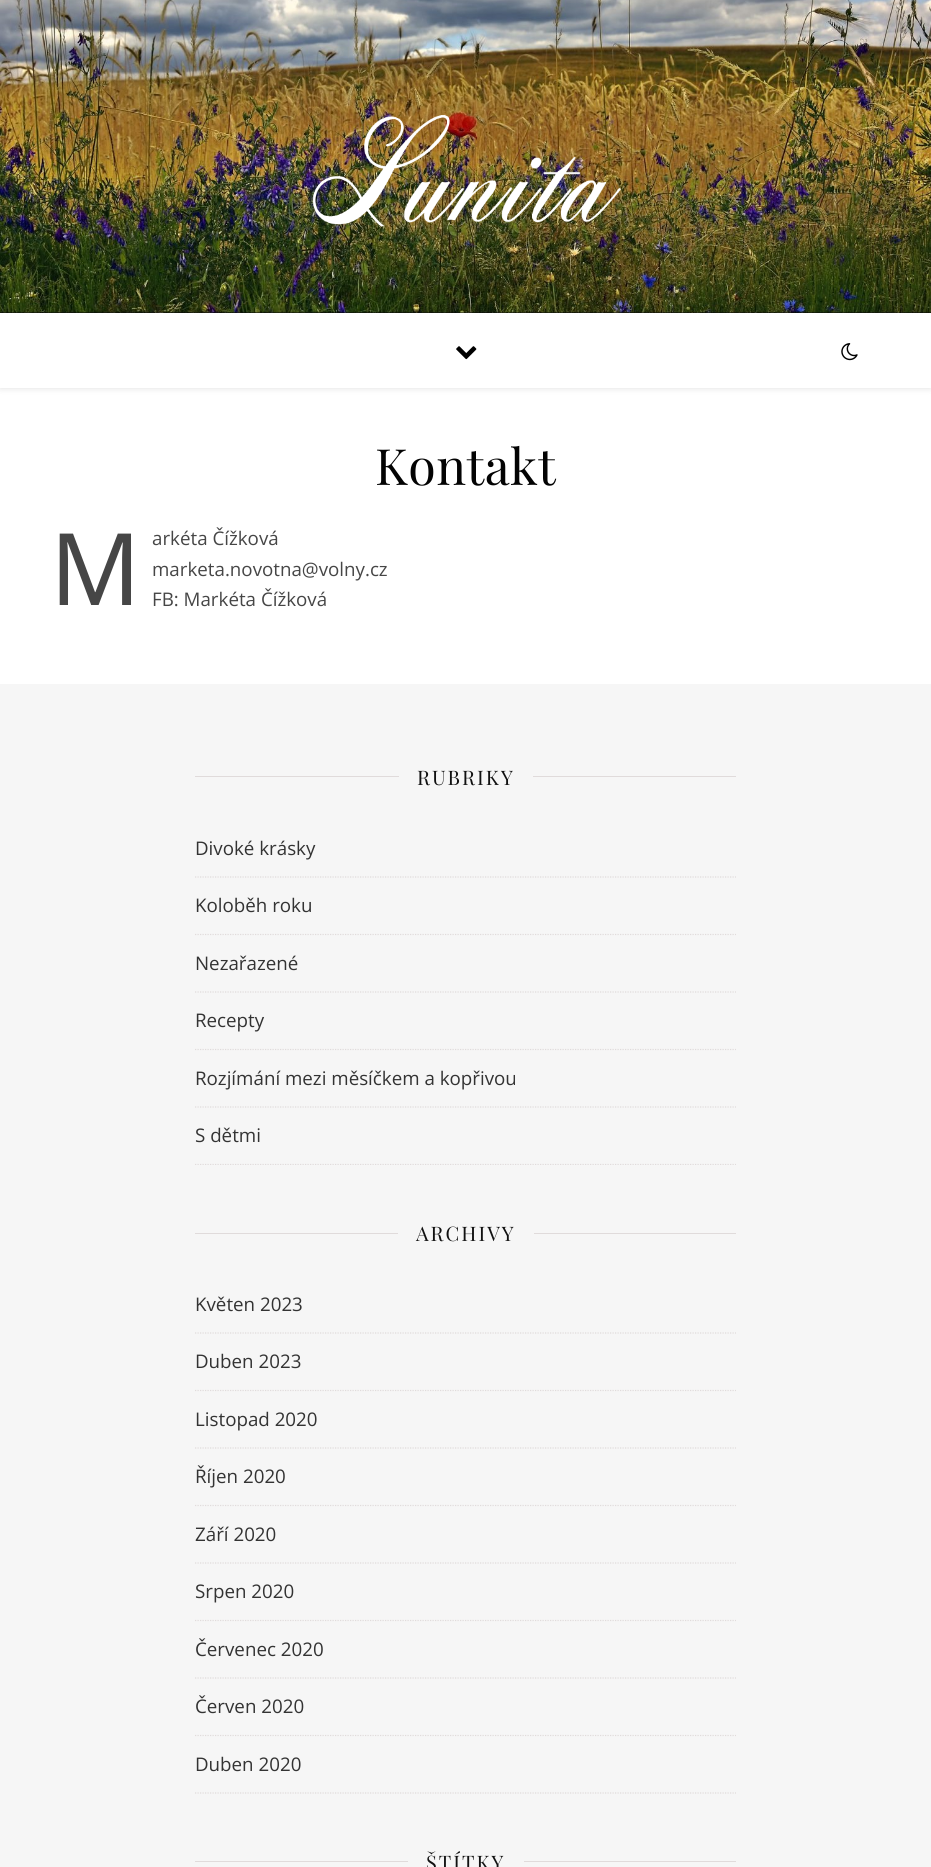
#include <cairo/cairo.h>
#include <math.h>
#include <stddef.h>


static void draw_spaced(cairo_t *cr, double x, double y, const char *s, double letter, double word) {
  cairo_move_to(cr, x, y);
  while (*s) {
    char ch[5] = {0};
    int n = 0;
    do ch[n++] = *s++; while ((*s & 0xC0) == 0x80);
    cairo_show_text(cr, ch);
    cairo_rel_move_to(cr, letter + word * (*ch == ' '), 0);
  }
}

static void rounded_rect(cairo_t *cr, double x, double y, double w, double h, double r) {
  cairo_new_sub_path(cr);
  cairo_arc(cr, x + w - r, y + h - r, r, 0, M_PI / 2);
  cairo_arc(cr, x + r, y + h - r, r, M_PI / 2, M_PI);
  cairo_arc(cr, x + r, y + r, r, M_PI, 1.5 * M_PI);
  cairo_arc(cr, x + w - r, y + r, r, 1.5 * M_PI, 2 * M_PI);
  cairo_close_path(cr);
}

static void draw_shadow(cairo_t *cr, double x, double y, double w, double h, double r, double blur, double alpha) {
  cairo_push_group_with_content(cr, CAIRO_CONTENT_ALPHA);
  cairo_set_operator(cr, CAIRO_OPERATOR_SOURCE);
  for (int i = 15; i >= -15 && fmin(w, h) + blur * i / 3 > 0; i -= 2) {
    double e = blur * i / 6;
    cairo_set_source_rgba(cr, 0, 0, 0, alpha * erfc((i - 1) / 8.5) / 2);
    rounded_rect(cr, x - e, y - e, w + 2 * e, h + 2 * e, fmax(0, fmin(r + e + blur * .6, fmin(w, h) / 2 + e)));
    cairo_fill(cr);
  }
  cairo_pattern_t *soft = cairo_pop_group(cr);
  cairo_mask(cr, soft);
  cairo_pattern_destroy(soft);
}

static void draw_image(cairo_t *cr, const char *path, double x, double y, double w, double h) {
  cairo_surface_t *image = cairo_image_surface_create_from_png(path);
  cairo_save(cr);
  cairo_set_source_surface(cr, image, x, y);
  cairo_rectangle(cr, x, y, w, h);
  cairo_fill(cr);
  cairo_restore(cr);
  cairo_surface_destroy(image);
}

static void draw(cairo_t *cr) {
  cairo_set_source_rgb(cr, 1, 1, 1);
  cairo_paint(cr);
  cairo_set_source_rgb(cr, 10 / 255.0, 10 / 255.0, 10 / 255.0);
  cairo_rectangle(cr, 0, 312, 931, 1);
  cairo_fill(cr);
  draw_image(cr, "images/1.png", 0, 0, 931, 313);
  draw_image(cr, "images/2.png", 312, 115, 310, 112);
  cairo_set_source_rgb(cr, 0, 0, 0);
  draw_shadow(cr, 0, 314, 931, 75, 0, 3, 0.1);
  cairo_set_source_rgb(cr, 1, 1, 1);
  cairo_rectangle(cr, 0, 313, 931, 75);
  cairo_fill(cr);
  draw_image(cr, "images/3.png", 456, 346, 21, 14);
  draw_image(cr, "images/4.png", 841, 343, 17, 18);
  cairo_set_source_rgb(cr, 246 / 255.0, 246 / 255.0, 246 / 255.0);
  cairo_rectangle(cr, 0, 684, 931, 1183);
  cairo_fill(cr);
  cairo_set_source_rgb(cr, 224 / 255.0, 219 / 255.0, 219 / 255.0);
  cairo_rectangle(cr, 195, 776, 204, 1);
  cairo_fill(cr);
  cairo_rectangle(cr, 533, 776, 203, 1);
  cairo_fill(cr);
  cairo_new_path(cr);
  cairo_move_to(cr, 195, 877);
  cairo_line_to(cr, 736, 877);
  cairo_set_line_width(cr, 1.2);
  cairo_set_dash(cr, (double[]){1.25, 1.25}, 2, 0);
  cairo_stroke(cr);
  cairo_new_path(cr);
  cairo_move_to(cr, 195, 934.5);
  cairo_line_to(cr, 736, 934.5);
  cairo_stroke(cr);
  cairo_new_path(cr);
  cairo_move_to(cr, 195, 992);
  cairo_line_to(cr, 736, 992);
  cairo_stroke(cr);
  cairo_new_path(cr);
  cairo_move_to(cr, 195, 1049.5);
  cairo_line_to(cr, 736, 1049.5);
  cairo_stroke(cr);
  cairo_new_path(cr);
  cairo_move_to(cr, 195, 1107);
  cairo_line_to(cr, 736, 1107);
  cairo_stroke(cr);
  cairo_save(cr);
  cairo_rectangle(cr, 195, 759, 541, 406);
  cairo_clip(cr);
  cairo_new_path(cr);
  cairo_move_to(cr, 195, 1164.5);
  cairo_line_to(cr, 736, 1164.5);
  cairo_stroke(cr);
  cairo_restore(cr);
  cairo_rectangle(cr, 195, 1233, 203, 1);
  cairo_fill(cr);
  cairo_rectangle(cr, 534, 1233, 202, 1);
  cairo_fill(cr);
  cairo_new_path(cr);
  cairo_move_to(cr, 195, 1333);
  cairo_line_to(cr, 736, 1333);
  cairo_stroke(cr);
  cairo_new_path(cr);
  cairo_move_to(cr, 195, 1390.5);
  cairo_line_to(cr, 736, 1390.5);
  cairo_stroke(cr);
  cairo_new_path(cr);
  cairo_move_to(cr, 195, 1448);
  cairo_line_to(cr, 736, 1448);
  cairo_stroke(cr);
  cairo_new_path(cr);
  cairo_move_to(cr, 195, 1505.5);
  cairo_line_to(cr, 736, 1505.5);
  cairo_stroke(cr);
  cairo_new_path(cr);
  cairo_move_to(cr, 195, 1563);
  cairo_line_to(cr, 736, 1563);
  cairo_stroke(cr);
  cairo_new_path(cr);
  cairo_move_to(cr, 195, 1620.5);
  cairo_line_to(cr, 736, 1620.5);
  cairo_stroke(cr);
  cairo_new_path(cr);
  cairo_move_to(cr, 195, 1678);
  cairo_line_to(cr, 736, 1678);
  cairo_stroke(cr);
  cairo_new_path(cr);
  cairo_move_to(cr, 195, 1735.5);
  cairo_line_to(cr, 736, 1735.5);
  cairo_stroke(cr);
  cairo_new_path(cr);
  cairo_move_to(cr, 195, 1793);
  cairo_line_to(cr, 736, 1793);
  cairo_stroke(cr);
  cairo_rectangle(cr, 195, 1861, 213, 1);
  cairo_fill(cr);
  cairo_rectangle(cr, 524, 1861, 212, 1);
  cairo_fill(cr);
  cairo_select_font_face(cr, "Playfair Display", CAIRO_FONT_SLANT_NORMAL, CAIRO_FONT_WEIGHT_NORMAL);
  cairo_set_font_size(cr, 50);
  cairo_set_source_rgb(cr, 3 / 255.0, 3 / 255.0, 3 / 255.0);
  draw_spaced(cr, 375, 485, "Kontakt", 0.5, 0);
  cairo_select_font_face(cr, "Noto Sans", CAIRO_FONT_SLANT_NORMAL, CAIRO_FONT_WEIGHT_NORMAL);
  cairo_set_font_size(cr, 100);
  cairo_set_source_rgb(cr, 70 / 255.0, 70 / 255.0, 70 / 255.0);
  cairo_move_to(cr, 50, 605);
  cairo_show_text(cr, "M");
  cairo_select_font_face(cr, "Open Sans", CAIRO_FONT_SLANT_NORMAL, CAIRO_FONT_WEIGHT_NORMAL);
  cairo_set_font_size(cr, 18.75);
  cairo_move_to(cr, 152, 545);
  cairo_show_text(cr, "arkéta Čížková");
  cairo_move_to(cr, 152, 576);
  cairo_show_text(cr, "marketa.novotna@volny.cz");
  cairo_move_to(cr, 152, 606);
  cairo_show_text(cr, "FB: Markéta Čížková");
  cairo_select_font_face(cr, "Playfair Display", CAIRO_FONT_SLANT_NORMAL, CAIRO_FONT_WEIGHT_NORMAL);
  cairo_set_font_size(cr, 20);
  cairo_set_source_rgb(cr, 17 / 255.0, 17 / 255.0, 17 / 255.0);
  draw_spaced(cr, 417, 785, "RUBRIKY", 2, 0);
  cairo_select_font_face(cr, "Open Sans", CAIRO_FONT_SLANT_NORMAL, CAIRO_FONT_WEIGHT_NORMAL);
  cairo_set_font_size(cr, 18.75);
  cairo_set_source_rgb(cr, 51 / 255.0, 51 / 255.0, 51 / 255.0);
  cairo_move_to(cr, 195, 855);
  cairo_show_text(cr, "Divoké krásky");
  cairo_move_to(cr, 195, 912);
  cairo_show_text(cr, "Koloběh roku");
  cairo_move_to(cr, 195, 970);
  cairo_show_text(cr, "Nezařazené");
  cairo_move_to(cr, 195, 1027);
  cairo_show_text(cr, "Recepty");
  cairo_move_to(cr, 195, 1085);
  cairo_show_text(cr, "Rozjímání mezi měsíčkem a kopřivou");
  cairo_move_to(cr, 195, 1142);
  cairo_show_text(cr, "S dětmi");
  cairo_select_font_face(cr, "Playfair Display", CAIRO_FONT_SLANT_NORMAL, CAIRO_FONT_WEIGHT_NORMAL);
  cairo_set_font_size(cr, 20);
  cairo_set_source_rgb(cr, 17 / 255.0, 17 / 255.0, 17 / 255.0);
  draw_spaced(cr, 416, 1241, "ARCHIVY", 2, 0);
  cairo_select_font_face(cr, "Open Sans", CAIRO_FONT_SLANT_NORMAL, CAIRO_FONT_WEIGHT_NORMAL);
  cairo_set_font_size(cr, 18.75);
  cairo_set_source_rgb(cr, 51 / 255.0, 51 / 255.0, 51 / 255.0);
  cairo_move_to(cr, 195, 1311);
  cairo_show_text(cr, "Květen 2023");
  cairo_move_to(cr, 195, 1368);
  cairo_show_text(cr, "Duben 2023");
  cairo_move_to(cr, 195, 1426);
  cairo_show_text(cr, "Listopad 2020");
  cairo_move_to(cr, 195, 1483);
  cairo_show_text(cr, "Říjen 2020");
  cairo_move_to(cr, 195, 1541);
  cairo_show_text(cr, "Září 2020");
  cairo_move_to(cr, 195, 1598);
  cairo_show_text(cr, "Srpen 2020");
  cairo_move_to(cr, 195, 1656);
  cairo_show_text(cr, "Červenec 2020");
  cairo_move_to(cr, 195, 1713);
  cairo_show_text(cr, "Červen 2020");
  cairo_move_to(cr, 195, 1771);
  cairo_show_text(cr, "Duben 2020");
  cairo_select_font_face(cr, "Playfair Display", CAIRO_FONT_SLANT_NORMAL, CAIRO_FONT_WEIGHT_NORMAL);
  cairo_set_font_size(cr, 20);
  cairo_set_source_rgb(cr, 17 / 255.0, 17 / 255.0, 17 / 255.0);
  draw_spaced(cr, 426, 1870, "ŠTÍTKY", 2, 0);
}

int main(void) {
  cairo_surface_t *surface = cairo_image_surface_create(CAIRO_FORMAT_RGB24, 931, 1867);
  cairo_t *cr = cairo_create(surface);
  cairo_font_options_t *options = cairo_font_options_create();
  cairo_font_options_set_hint_metrics(options, CAIRO_HINT_METRICS_OFF);
  cairo_font_options_set_hint_style(options, CAIRO_HINT_STYLE_NONE);
  cairo_set_font_options(cr, options);
  cairo_set_miter_limit(cr, 4);
  draw(cr);
  cairo_surface_write_to_png(surface, "out.png");
  cairo_font_options_destroy(options);
  cairo_destroy(cr);
  cairo_surface_destroy(surface);
  return 0;
}
